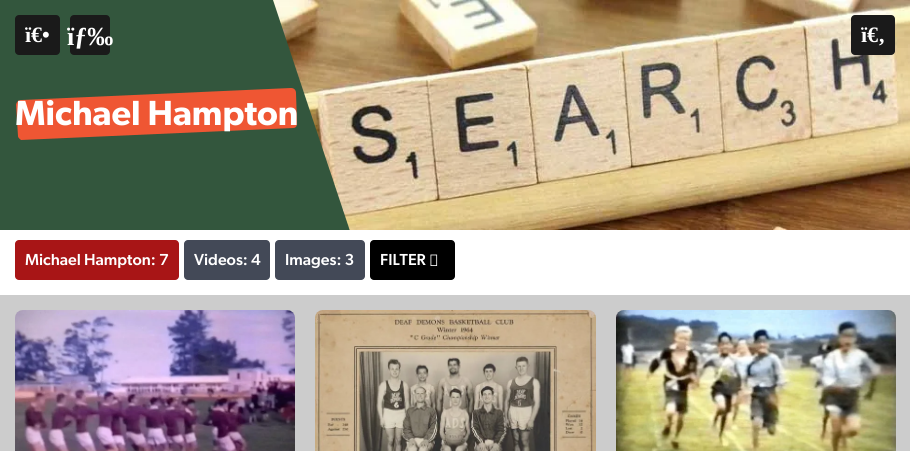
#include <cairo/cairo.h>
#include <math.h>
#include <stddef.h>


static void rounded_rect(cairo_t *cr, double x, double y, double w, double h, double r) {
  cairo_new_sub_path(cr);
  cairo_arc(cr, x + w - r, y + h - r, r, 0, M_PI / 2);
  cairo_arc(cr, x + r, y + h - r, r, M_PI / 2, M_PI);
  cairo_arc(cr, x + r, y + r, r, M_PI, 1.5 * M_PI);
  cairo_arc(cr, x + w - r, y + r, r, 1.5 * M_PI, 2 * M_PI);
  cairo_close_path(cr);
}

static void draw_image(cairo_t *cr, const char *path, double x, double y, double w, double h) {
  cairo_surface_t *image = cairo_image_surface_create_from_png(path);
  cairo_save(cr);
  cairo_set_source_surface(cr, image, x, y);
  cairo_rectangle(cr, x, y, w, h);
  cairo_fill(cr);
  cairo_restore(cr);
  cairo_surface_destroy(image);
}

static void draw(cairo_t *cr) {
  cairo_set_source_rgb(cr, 204 / 255.0, 204 / 255.0, 204 / 255.0);
  cairo_paint(cr);
  cairo_set_source_rgb(cr, 51 / 255.0, 86 / 255.0, 61 / 255.0);
  cairo_rectangle(cr, 0, 0, 273, 230);
  cairo_fill(cr);
  cairo_set_source_rgb(cr, 26 / 255.0, 26 / 255.0, 26 / 255.0);
  rounded_rect(cr, 15, 15, 45, 40, 4);
  cairo_fill(cr);
  rounded_rect(cr, 70, 15, 40, 40, 4);
  cairo_fill(cr);
  draw_image(cr, "images/1.png", 273, 0, 637, 230);
  rounded_rect(cr, 851, 15, 44, 40, 4);
  cairo_fill(cr);
  cairo_save(cr);
  cairo_rectangle(cr, 273, 0, 637, 230);
  cairo_clip(cr);
  cairo_set_source_rgb(cr, 51 / 255.0, 86 / 255.0, 61 / 255.0);
  cairo_new_path(cr);
  cairo_move_to(cr, 373, 300);
  cairo_line_to(cr, 273, 300);
  cairo_line_to(cr, 273, 0);
  cairo_close_path(cr);
  cairo_fill(cr);
  cairo_restore(cr);
  cairo_set_source_rgb(cr, 239 / 255.0, 86 / 255.0, 51 / 255.0);
  cairo_new_path(cr);
  cairo_move_to(cr, 21, 100);
  cairo_line_to(cr, 291, 88);
  cairo_curve_to(cr, 294, 88, 296, 90, 296, 93);
  cairo_line_to(cr, 297, 123);
  cairo_curve_to(cr, 297, 126, 296, 128, 293, 128);
  cairo_line_to(cr, 21, 140);
  cairo_curve_to(cr, 20, 139, 18, 138, 18, 136);
  cairo_line_to(cr, 16, 105);
  cairo_curve_to(cr, 16, 103, 18, 100, 21, 100);
  cairo_close_path(cr);
  cairo_fill(cr);
  cairo_set_source_rgb(cr, 1, 1, 1);
  cairo_rectangle(cr, 0, 230, 910, 65);
  cairo_fill(cr);
  cairo_set_source_rgb(cr, 168 / 255.0, 21 / 255.0, 22 / 255.0);
  rounded_rect(cr, 15, 240, 164, 40, 4);
  cairo_fill(cr);
  cairo_set_source_rgb(cr, 67 / 255.0, 73 / 255.0, 87 / 255.0);
  rounded_rect(cr, 184, 240, 86, 40, 4);
  cairo_fill(cr);
  rounded_rect(cr, 275, 240, 90, 40, 4);
  cairo_fill(cr);
  cairo_set_source_rgb(cr, 0, 0, 0);
  rounded_rect(cr, 370, 240, 85, 40, 4);
  cairo_fill(cr);
  draw_image(cr, "images/2.png", 430, 254, 8, 12);
  draw_image(cr, "images/3.png", 15, 310, 280, 141);
  draw_image(cr, "images/4.png", 315, 310, 281, 141);
  draw_image(cr, "images/5.png", 616, 310, 280, 141);
  cairo_select_font_face(cr, "Liberation Serif", CAIRO_FONT_SLANT_NORMAL, CAIRO_FONT_WEIGHT_BOLD);
  cairo_set_font_size(cr, 22);
  cairo_set_source_rgb(cr, 1, 1, 1);
  cairo_move_to(cr, 25, 42);
  cairo_show_text(cr, "ï€•");
  cairo_set_font_size(cr, 26);
  cairo_move_to(cr, 67, 45);
  cairo_show_text(cr, "ïƒ‰");
  cairo_set_font_size(cr, 22);
  cairo_move_to(cr, 861, 42);
  cairo_show_text(cr, "ï€‚");
  cairo_select_font_face(cr, "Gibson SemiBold", CAIRO_FONT_SLANT_NORMAL, CAIRO_FONT_WEIGHT_NORMAL);
  cairo_set_font_size(cr, 35);
  cairo_move_to(cr, 15, 125);
  cairo_show_text(cr, "Michael Hampton");
  cairo_select_font_face(cr, "Gibson Medium", CAIRO_FONT_SLANT_NORMAL, CAIRO_FONT_WEIGHT_NORMAL);
  cairo_set_font_size(cr, 16);
  cairo_move_to(cr, 25, 265);
  cairo_show_text(cr, "Michael Hampton: 7");
  cairo_move_to(cr, 194, 265);
  cairo_show_text(cr, "Videos: 4");
  cairo_move_to(cr, 285, 265);
  cairo_show_text(cr, "Images: 3");
  cairo_move_to(cr, 380, 265);
  cairo_show_text(cr, "FILTER");
}

int main(void) {
  cairo_surface_t *surface = cairo_image_surface_create(CAIRO_FORMAT_RGB24, 910, 451);
  cairo_t *cr = cairo_create(surface);
  cairo_font_options_t *options = cairo_font_options_create();
  cairo_font_options_set_hint_metrics(options, CAIRO_HINT_METRICS_OFF);
  cairo_font_options_set_hint_style(options, CAIRO_HINT_STYLE_NONE);
  cairo_set_font_options(cr, options);
  cairo_set_miter_limit(cr, 4);
  draw(cr);
  cairo_surface_write_to_png(surface, "out.png");
  cairo_font_options_destroy(options);
  cairo_destroy(cr);
  cairo_surface_destroy(surface);
  return 0;
}
